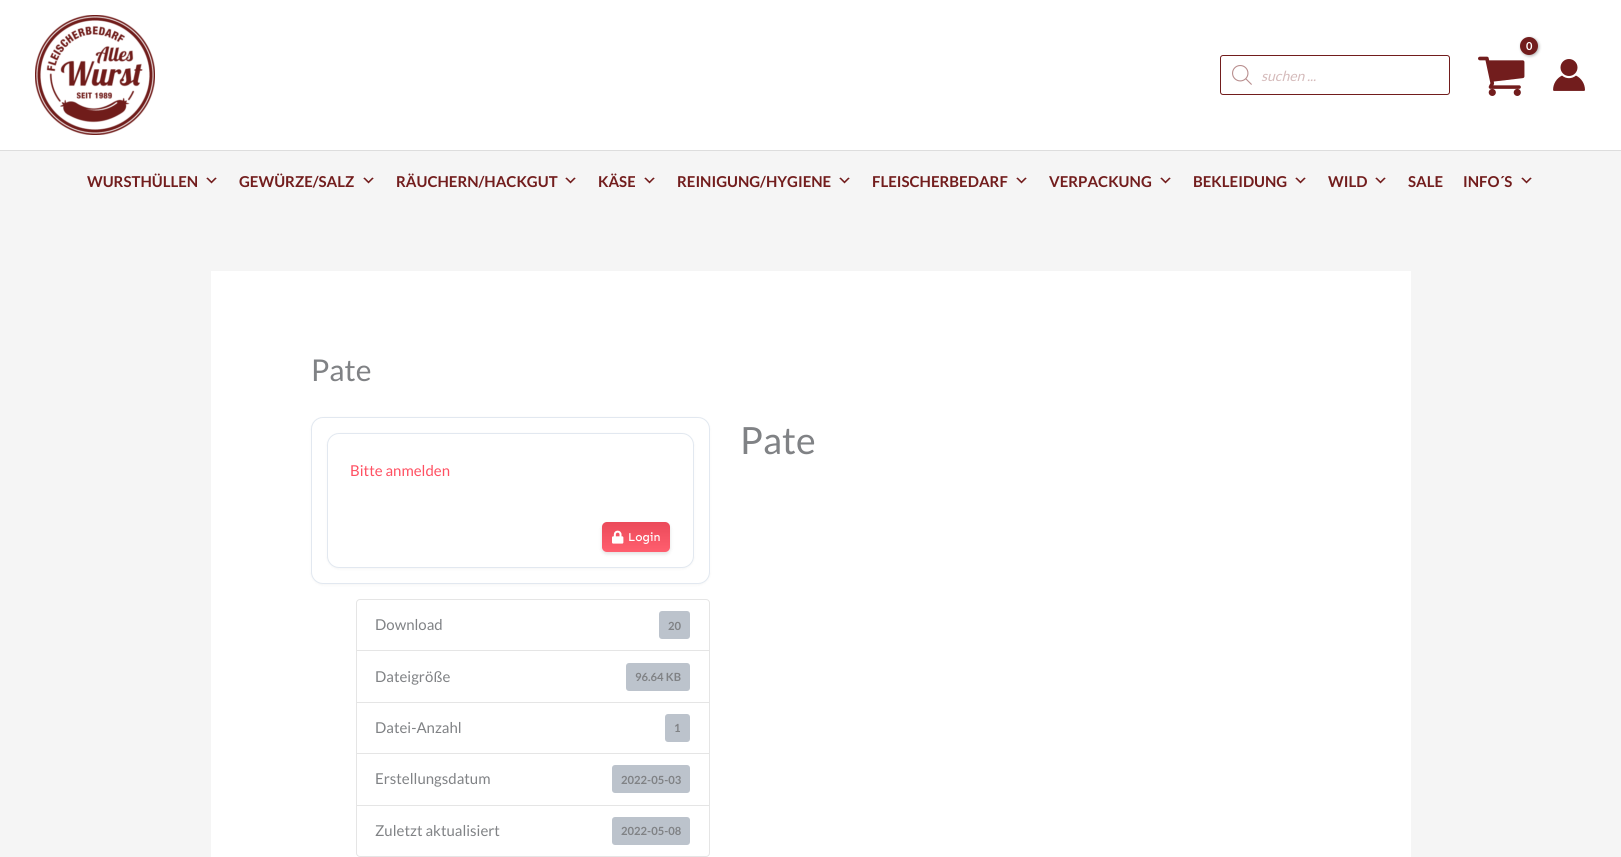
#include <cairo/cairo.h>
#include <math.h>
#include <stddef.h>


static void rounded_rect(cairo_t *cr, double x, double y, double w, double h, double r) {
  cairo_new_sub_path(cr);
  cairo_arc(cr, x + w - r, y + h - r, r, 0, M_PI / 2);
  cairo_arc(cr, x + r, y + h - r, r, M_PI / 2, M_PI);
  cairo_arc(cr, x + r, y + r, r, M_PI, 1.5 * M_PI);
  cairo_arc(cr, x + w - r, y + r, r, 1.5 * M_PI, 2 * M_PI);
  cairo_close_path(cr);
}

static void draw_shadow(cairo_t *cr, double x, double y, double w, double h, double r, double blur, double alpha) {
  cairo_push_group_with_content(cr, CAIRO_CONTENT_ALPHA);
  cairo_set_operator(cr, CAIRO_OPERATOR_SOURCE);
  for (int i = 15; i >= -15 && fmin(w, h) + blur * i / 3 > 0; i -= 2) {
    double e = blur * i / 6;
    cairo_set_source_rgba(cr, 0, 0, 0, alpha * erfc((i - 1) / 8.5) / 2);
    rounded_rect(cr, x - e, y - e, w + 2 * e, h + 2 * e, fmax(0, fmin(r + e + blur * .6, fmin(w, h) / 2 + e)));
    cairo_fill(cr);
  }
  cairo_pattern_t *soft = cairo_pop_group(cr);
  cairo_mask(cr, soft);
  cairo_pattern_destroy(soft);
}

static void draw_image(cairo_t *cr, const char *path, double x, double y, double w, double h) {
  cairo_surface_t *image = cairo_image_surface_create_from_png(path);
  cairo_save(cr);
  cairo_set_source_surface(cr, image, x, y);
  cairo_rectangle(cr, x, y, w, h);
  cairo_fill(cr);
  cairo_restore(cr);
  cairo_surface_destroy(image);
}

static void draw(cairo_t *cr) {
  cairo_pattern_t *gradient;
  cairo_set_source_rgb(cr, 245 / 255.0, 245 / 255.0, 245 / 255.0);
  cairo_paint(cr);
  cairo_set_source_rgb(cr, 1, 1, 1);
  cairo_rectangle(cr, 0, 0, 1621, 150);
  cairo_fill(cr);
  cairo_set_source_rgb(cr, 221 / 255.0, 221 / 255.0, 221 / 255.0);
  cairo_rectangle(cr, 0, 150, 1621, 1);
  cairo_fill(cr);
  draw_image(cr, "images/1.png", 35, 15, 120, 120);
  draw_image(cr, "images/2.png", 1478, 56, 47, 40);
  cairo_set_source_rgb(cr, 0, 0, 0);
  draw_shadow(cr, 1521, 38, 18, 18, 9, 1.5, 0.3);
  cairo_set_source_rgb(cr, 114 / 255.0, 29 / 255.0, 29 / 255.0);
  cairo_arc(cr, 1529, 46, 9, 0, 2 * M_PI);
  cairo_fill(cr);
  rounded_rect(cr, 1220.5, 55.5, 229, 39, 2.5);
  cairo_set_line_width(cr, 1);
  cairo_stroke(cr);
  draw_image(cr, "images/3.png", 1232, 65, 20, 20);
  draw_image(cr, "images/4.png", 1553, 59, 32, 32);
  draw_image(cr, "images/5.png", 206, 177, 11, 7);
  draw_image(cr, "images/5.png", 363, 177, 11, 7);
  draw_image(cr, "images/5.png", 565, 177, 11, 7);
  draw_image(cr, "images/5.png", 644, 177, 11, 7);
  draw_image(cr, "images/5.png", 839, 177, 11, 7);
  draw_image(cr, "images/5.png", 1016, 177, 11, 7);
  draw_image(cr, "images/5.png", 1160, 177, 11, 7);
  draw_image(cr, "images/5.png", 1295, 177, 11, 7);
  draw_image(cr, "images/5.png", 1375, 177, 11, 7);
  draw_image(cr, "images/5.png", 1521, 177, 11, 7);
  cairo_set_source_rgb(cr, 1, 1, 1);
  cairo_rectangle(cr, 211, 271, 1200, 586);
  cairo_fill(cr);
  cairo_set_source_rgb(cr, 0, 0, 0);
  draw_shadow(cr, 311, 418, 399, 167, 12, 1.5, 0.04);
  cairo_set_source_rgb(cr, 1, 1, 1);
  rounded_rect(cr, 311.5, 417.5, 398, 166, 11.5);
  cairo_fill_preserve(cr);
  cairo_set_source_rgb(cr, 226 / 255.0, 232 / 255.0, 240 / 255.0);
  cairo_stroke(cr);
  cairo_set_source_rgb(cr, 0, 0, 0);
  draw_shadow(cr, 327, 434, 367, 135, 12, 1.5, 0.04);
  cairo_set_source_rgb(cr, 1, 1, 1);
  rounded_rect(cr, 327.5, 433.5, 366, 134, 11.5);
  cairo_fill_preserve(cr);
  cairo_set_source_rgb(cr, 226 / 255.0, 232 / 255.0, 240 / 255.0);
  cairo_stroke(cr);
  cairo_set_source_rgb(cr, 0, 0, 0);
  draw_shadow(cr, 602, 524, 68, 30, 5, 2, 0.12);
  cairo_set_source_rgb(cr, 1, 80 / 255.0, 98 / 255.0);
  rounded_rect(cr, 602, 522, 68, 30, 5);
  cairo_fill(cr);
  gradient = cairo_pattern_create_linear(636, 522, 636, 552);
  cairo_pattern_add_color_stop_rgba(gradient, 0, 0, 0, 0, 0.08);
  cairo_pattern_add_color_stop_rgba(gradient, 1, 1, 1, 1, 0.08);
  cairo_set_source(cr, gradient);
  cairo_pattern_destroy(gradient);
  rounded_rect(cr, 602, 522, 68, 30, 5);
  cairo_fill(cr);
  draw_image(cr, "images/6.png", 612, 530, 12, 14);
  cairo_new_path(cr);
  cairo_move_to(cr, 360, 599.5);
  cairo_line_to(cr, 706, 599.5);
  cairo_curve_to(cr, 708, 599.5, 709.5, 601, 709.5, 603);
  cairo_line_to(cr, 709.5, 650.5);
  cairo_line_to(cr, 356.5, 650.5);
  cairo_line_to(cr, 356.5, 603);
  cairo_curve_to(cr, 356.5, 601, 358, 599.5, 360, 599.5);
  cairo_close_path(cr);
  cairo_set_source_rgb(cr, 229 / 255.0, 229 / 255.0, 229 / 255.0);
  cairo_stroke(cr);
  cairo_set_source_rgb(cr, 188 / 255.0, 195 / 255.0, 204 / 255.0);
  rounded_rect(cr, 659, 611, 31, 28, 3);
  cairo_fill(cr);
  cairo_rectangle(cr, 356.5, 650.5, 353, 52);
  cairo_set_source_rgb(cr, 229 / 255.0, 229 / 255.0, 229 / 255.0);
  cairo_stroke(cr);
  cairo_set_source_rgb(cr, 188 / 255.0, 195 / 255.0, 204 / 255.0);
  rounded_rect(cr, 626, 663, 64, 28, 3);
  cairo_fill(cr);
  cairo_rectangle(cr, 356.5, 702.5, 353, 51);
  cairo_set_source_rgb(cr, 229 / 255.0, 229 / 255.0, 229 / 255.0);
  cairo_stroke(cr);
  cairo_set_source_rgb(cr, 188 / 255.0, 195 / 255.0, 204 / 255.0);
  rounded_rect(cr, 665, 714, 25, 28, 3);
  cairo_fill(cr);
  cairo_rectangle(cr, 356.5, 753.5, 353, 52);
  cairo_set_source_rgb(cr, 229 / 255.0, 229 / 255.0, 229 / 255.0);
  cairo_stroke(cr);
  cairo_set_source_rgb(cr, 188 / 255.0, 195 / 255.0, 204 / 255.0);
  rounded_rect(cr, 612, 765, 78, 28, 3);
  cairo_fill(cr);
  cairo_set_source_rgb(cr, 1, 1, 1);
  cairo_new_path(cr);
  cairo_move_to(cr, 356.5, 805.5);
  cairo_line_to(cr, 709.5, 805.5);
  cairo_line_to(cr, 709.5, 853);
  cairo_curve_to(cr, 709.5, 855, 708, 856.5, 706, 856.5);
  cairo_line_to(cr, 360, 856.5);
  cairo_curve_to(cr, 358, 856.5, 356.5, 855, 356.5, 853);
  cairo_close_path(cr);
  cairo_fill_preserve(cr);
  cairo_set_source_rgb(cr, 229 / 255.0, 229 / 255.0, 229 / 255.0);
  cairo_stroke(cr);
  cairo_set_source_rgb(cr, 188 / 255.0, 195 / 255.0, 204 / 255.0);
  rounded_rect(cr, 612, 817, 78, 28, 3);
  cairo_fill(cr);
  cairo_select_font_face(cr, "Lato", CAIRO_FONT_SLANT_NORMAL, CAIRO_FONT_WEIGHT_BOLD);
  cairo_set_font_size(cr, 11);
  cairo_set_source_rgb(cr, 1, 1, 1);
  cairo_move_to(cr, 1526, 50);
  cairo_show_text(cr, "0");
  cairo_select_font_face(cr, "Lato", CAIRO_FONT_SLANT_ITALIC, CAIRO_FONT_WEIGHT_NORMAL);
  cairo_set_font_size(cr, 14);
  cairo_set_source_rgb(cr, 213 / 255.0, 187 / 255.0, 187 / 255.0);
  cairo_move_to(cr, 1261, 81);
  cairo_show_text(cr, "suchen ...");
  cairo_select_font_face(cr, "Lato", CAIRO_FONT_SLANT_NORMAL, CAIRO_FONT_WEIGHT_BOLD);
  cairo_set_font_size(cr, 15);
  cairo_set_source_rgb(cr, 114 / 255.0, 29 / 255.0, 29 / 255.0);
  cairo_move_to(cr, 87, 187);
  cairo_show_text(cr, "WURSTHÜLLEN");
  cairo_move_to(cr, 239, 187);
  cairo_show_text(cr, "GEWÜRZE/SALZ");
  cairo_move_to(cr, 396, 187);
  cairo_show_text(cr, "RÄUCHERN/HACKGUT");
  cairo_move_to(cr, 598, 187);
  cairo_show_text(cr, "KÄSE");
  cairo_move_to(cr, 677, 187);
  cairo_show_text(cr, "REINIGUNG/HYGIENE");
  cairo_move_to(cr, 872, 187);
  cairo_show_text(cr, "FLEISCHERBEDARF");
  cairo_move_to(cr, 1049, 187);
  cairo_show_text(cr, "VERPACKUNG");
  cairo_move_to(cr, 1193, 187);
  cairo_show_text(cr, "BEKLEIDUNG");
  cairo_move_to(cr, 1328, 187);
  cairo_show_text(cr, "WILD");
  cairo_move_to(cr, 1408, 187);
  cairo_show_text(cr, "SALE");
  cairo_move_to(cr, 1463, 187);
  cairo_show_text(cr, "INFO´S");
  cairo_select_font_face(cr, "Lato", CAIRO_FONT_SLANT_NORMAL, CAIRO_FONT_WEIGHT_NORMAL);
  cairo_set_font_size(cr, 30);
  cairo_set_source_rgb(cr, 128 / 255.0, 130 / 255.0, 133 / 255.0);
  cairo_move_to(cr, 311, 381);
  cairo_show_text(cr, "Pate");
  cairo_set_font_size(cr, 37.5);
  cairo_move_to(cr, 740, 454);
  cairo_show_text(cr, "Pate");
  cairo_set_font_size(cr, 15);
  cairo_set_source_rgb(cr, 1, 80 / 255.0, 98 / 255.0);
  cairo_move_to(cr, 350, 476);
  cairo_show_text(cr, "Bitte anmelden");
  cairo_select_font_face(cr, "Sen Medium", CAIRO_FONT_SLANT_NORMAL, CAIRO_FONT_WEIGHT_NORMAL);
  cairo_set_font_size(cr, 12);
  cairo_set_source_rgb(cr, 1, 1, 1);
  cairo_move_to(cr, 628, 541);
  cairo_show_text(cr, "Login");
  cairo_select_font_face(cr, "Lato", CAIRO_FONT_SLANT_NORMAL, CAIRO_FONT_WEIGHT_NORMAL);
  cairo_set_font_size(cr, 15);
  cairo_set_source_rgb(cr, 128 / 255.0, 130 / 255.0, 133 / 255.0);
  cairo_move_to(cr, 375, 630);
  cairo_show_text(cr, "Download");
  cairo_select_font_face(cr, "Lato", CAIRO_FONT_SLANT_NORMAL, CAIRO_FONT_WEIGHT_BOLD);
  cairo_set_font_size(cr, 11.25);
  cairo_move_to(cr, 668, 630);
  cairo_show_text(cr, "20");
  cairo_select_font_face(cr, "Lato", CAIRO_FONT_SLANT_NORMAL, CAIRO_FONT_WEIGHT_NORMAL);
  cairo_set_font_size(cr, 15);
  cairo_move_to(cr, 375, 682);
  cairo_show_text(cr, "Dateigröße");
  cairo_select_font_face(cr, "Lato", CAIRO_FONT_SLANT_NORMAL, CAIRO_FONT_WEIGHT_BOLD);
  cairo_set_font_size(cr, 11.25);
  cairo_move_to(cr, 635, 681);
  cairo_show_text(cr, "96.64 KB");
  cairo_select_font_face(cr, "Lato", CAIRO_FONT_SLANT_NORMAL, CAIRO_FONT_WEIGHT_NORMAL);
  cairo_set_font_size(cr, 15);
  cairo_move_to(cr, 375, 733);
  cairo_show_text(cr, "Datei-Anzahl");
  cairo_select_font_face(cr, "Lato", CAIRO_FONT_SLANT_NORMAL, CAIRO_FONT_WEIGHT_BOLD);
  cairo_set_font_size(cr, 11.25);
  cairo_move_to(cr, 674, 732);
  cairo_show_text(cr, "1");
  cairo_select_font_face(cr, "Lato", CAIRO_FONT_SLANT_NORMAL, CAIRO_FONT_WEIGHT_NORMAL);
  cairo_set_font_size(cr, 15);
  cairo_move_to(cr, 375, 784);
  cairo_show_text(cr, "Erstellungsdatum");
  cairo_select_font_face(cr, "Lato", CAIRO_FONT_SLANT_NORMAL, CAIRO_FONT_WEIGHT_BOLD);
  cairo_set_font_size(cr, 11.25);
  cairo_move_to(cr, 621, 784);
  cairo_show_text(cr, "2022-05-03");
  cairo_select_font_face(cr, "Lato", CAIRO_FONT_SLANT_NORMAL, CAIRO_FONT_WEIGHT_NORMAL);
  cairo_set_font_size(cr, 15);
  cairo_move_to(cr, 375, 836);
  cairo_show_text(cr, "Zuletzt aktualisiert");
  cairo_select_font_face(cr, "Lato", CAIRO_FONT_SLANT_NORMAL, CAIRO_FONT_WEIGHT_BOLD);
  cairo_set_font_size(cr, 11.25);
  cairo_move_to(cr, 621, 835);
  cairo_show_text(cr, "2022-05-08");
}

int main(void) {
  cairo_surface_t *surface = cairo_image_surface_create(CAIRO_FORMAT_RGB24, 1621, 857);
  cairo_t *cr = cairo_create(surface);
  cairo_font_options_t *options = cairo_font_options_create();
  cairo_font_options_set_hint_metrics(options, CAIRO_HINT_METRICS_OFF);
  cairo_font_options_set_hint_style(options, CAIRO_HINT_STYLE_NONE);
  cairo_set_font_options(cr, options);
  cairo_set_miter_limit(cr, 4);
  draw(cr);
  cairo_surface_write_to_png(surface, "out.png");
  cairo_font_options_destroy(options);
  cairo_destroy(cr);
  cairo_surface_destroy(surface);
  return 0;
}
